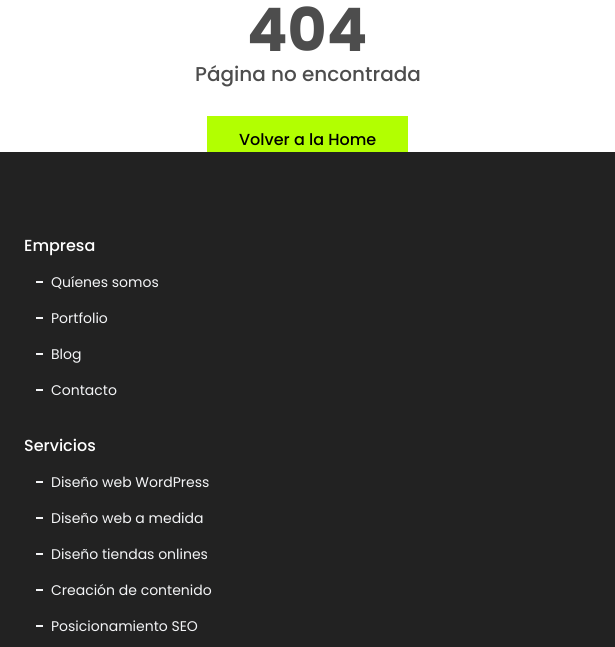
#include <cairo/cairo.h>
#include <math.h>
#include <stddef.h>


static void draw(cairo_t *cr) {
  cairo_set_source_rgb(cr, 1, 1, 1);
  cairo_paint(cr);
  cairo_set_source_rgb(cr, 178 / 255.0, 1, 1 / 255.0);
  cairo_rectangle(cr, 207, 116, 201, 36);
  cairo_fill(cr);
  cairo_set_source_rgb(cr, 34 / 255.0, 34 / 255.0, 34 / 255.0);
  cairo_rectangle(cr, 0, 152, 615, 495);
  cairo_fill(cr);
  cairo_set_source_rgb(cr, 243 / 255.0, 244 / 255.0, 246 / 255.0);
  cairo_rectangle(cr, 36, 281, 7, 2);
  cairo_fill(cr);
  cairo_rectangle(cr, 36, 317, 7, 2);
  cairo_fill(cr);
  cairo_rectangle(cr, 36, 353, 7, 2);
  cairo_fill(cr);
  cairo_rectangle(cr, 36, 389, 7, 2);
  cairo_fill(cr);
  cairo_rectangle(cr, 36, 481, 7, 2);
  cairo_fill(cr);
  cairo_rectangle(cr, 36, 517, 7, 2);
  cairo_fill(cr);
  cairo_rectangle(cr, 36, 553, 7, 2);
  cairo_fill(cr);
  cairo_rectangle(cr, 36, 589, 7, 2);
  cairo_fill(cr);
  cairo_rectangle(cr, 36, 625, 7, 2);
  cairo_fill(cr);
  cairo_select_font_face(cr, "Poppins", CAIRO_FONT_SLANT_NORMAL, CAIRO_FONT_WEIGHT_BOLD);
  cairo_set_font_size(cr, 60);
  cairo_set_source_rgb(cr, 77 / 255.0, 77 / 255.0, 77 / 255.0);
  cairo_move_to(cr, 247, 51);
  cairo_show_text(cr, "404");
  cairo_select_font_face(cr, "Poppins Medium", CAIRO_FONT_SLANT_NORMAL, CAIRO_FONT_WEIGHT_NORMAL);
  cairo_set_font_size(cr, 20);
  cairo_move_to(cr, 195, 81);
  cairo_show_text(cr, "Página no encontrada");
  cairo_set_font_size(cr, 16);
  cairo_set_source_rgb(cr, 0, 0, 0);
  cairo_move_to(cr, 239, 145);
  cairo_show_text(cr, "Volver a la Home");
  cairo_set_source_rgb(cr, 1, 1, 1);
  cairo_move_to(cr, 24, 251);
  cairo_show_text(cr, "Empresa");
  cairo_select_font_face(cr, "Poppins", CAIRO_FONT_SLANT_NORMAL, CAIRO_FONT_WEIGHT_NORMAL);
  cairo_set_font_size(cr, 14);
  cairo_set_source_rgb(cr, 243 / 255.0, 244 / 255.0, 246 / 255.0);
  cairo_move_to(cr, 51, 287);
  cairo_show_text(cr, "Quíenes somos");
  cairo_move_to(cr, 51, 323);
  cairo_show_text(cr, "Portfolio");
  cairo_move_to(cr, 51, 359);
  cairo_show_text(cr, "Blog");
  cairo_move_to(cr, 51, 395);
  cairo_show_text(cr, "Contacto");
  cairo_select_font_face(cr, "Poppins Medium", CAIRO_FONT_SLANT_NORMAL, CAIRO_FONT_WEIGHT_NORMAL);
  cairo_set_font_size(cr, 16);
  cairo_set_source_rgb(cr, 1, 1, 1);
  cairo_move_to(cr, 24, 451);
  cairo_show_text(cr, "Servicios");
  cairo_select_font_face(cr, "Poppins", CAIRO_FONT_SLANT_NORMAL, CAIRO_FONT_WEIGHT_NORMAL);
  cairo_set_font_size(cr, 14);
  cairo_set_source_rgb(cr, 243 / 255.0, 244 / 255.0, 246 / 255.0);
  cairo_move_to(cr, 51, 487);
  cairo_show_text(cr, "Diseño web WordPress");
  cairo_move_to(cr, 51, 523);
  cairo_show_text(cr, "Diseño web a medida");
  cairo_move_to(cr, 51, 559);
  cairo_show_text(cr, "Diseño tiendas onlines");
  cairo_move_to(cr, 51, 595);
  cairo_show_text(cr, "Creación de contenido");
  cairo_move_to(cr, 51, 631);
  cairo_show_text(cr, "Posicionamiento SEO");
}

int main(void) {
  cairo_surface_t *surface = cairo_image_surface_create(CAIRO_FORMAT_RGB24, 615, 647);
  cairo_t *cr = cairo_create(surface);
  cairo_font_options_t *options = cairo_font_options_create();
  cairo_font_options_set_hint_metrics(options, CAIRO_HINT_METRICS_OFF);
  cairo_font_options_set_hint_style(options, CAIRO_HINT_STYLE_NONE);
  cairo_set_font_options(cr, options);
  cairo_set_miter_limit(cr, 4);
  draw(cr);
  cairo_surface_write_to_png(surface, "out.png");
  cairo_font_options_destroy(options);
  cairo_destroy(cr);
  cairo_surface_destroy(surface);
  return 0;
}
